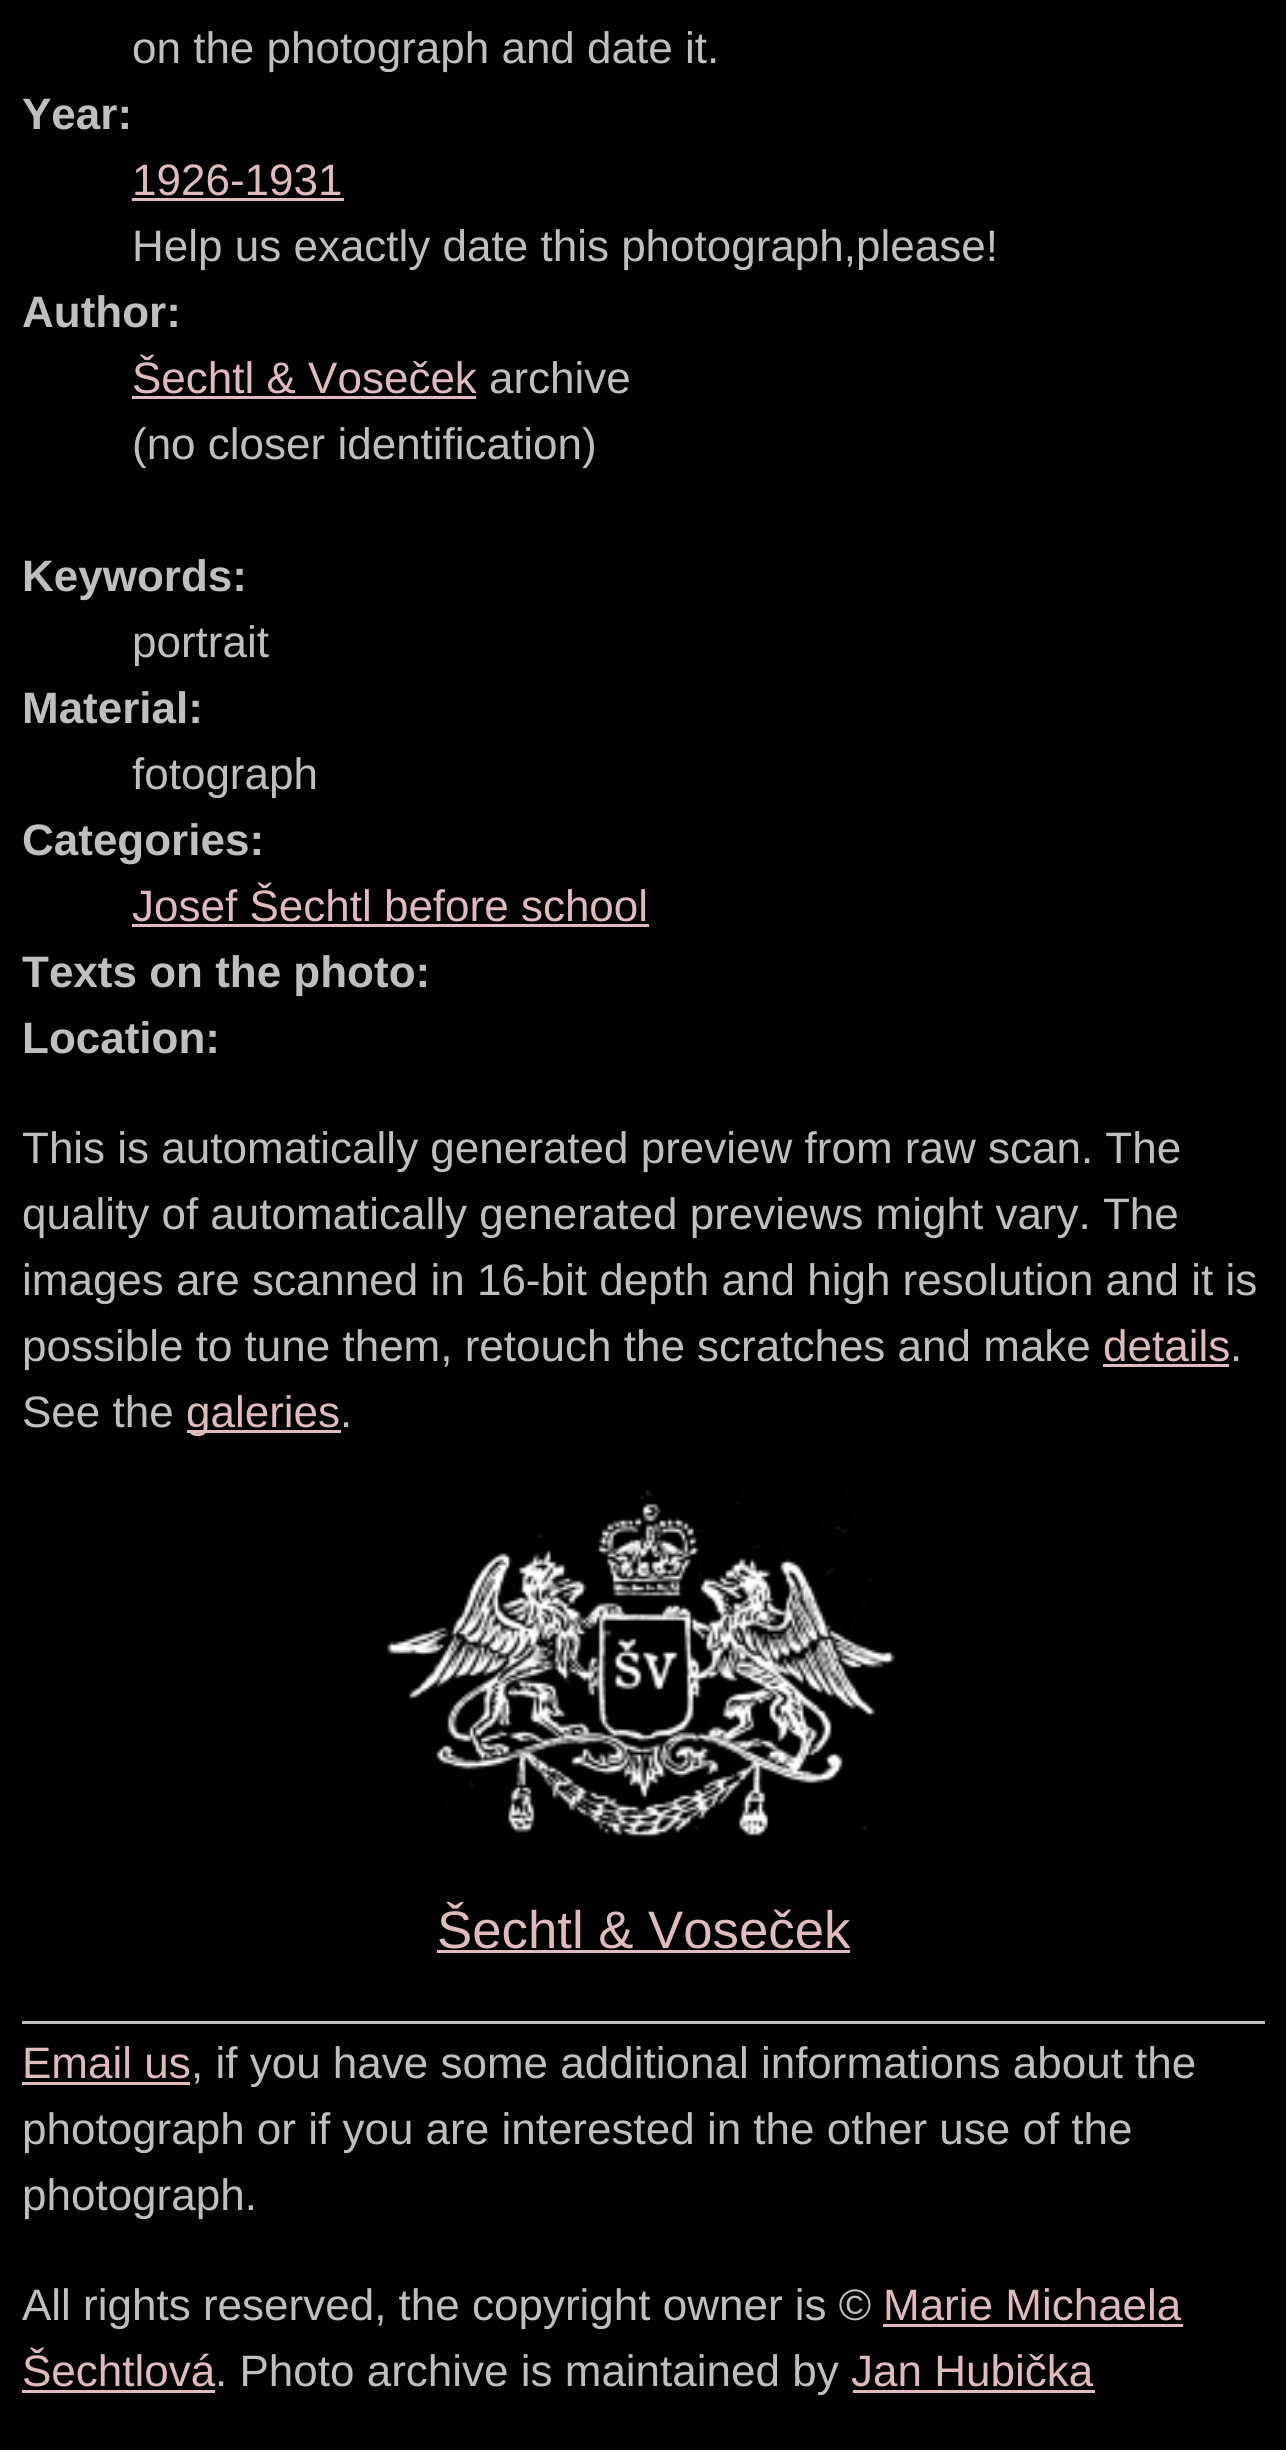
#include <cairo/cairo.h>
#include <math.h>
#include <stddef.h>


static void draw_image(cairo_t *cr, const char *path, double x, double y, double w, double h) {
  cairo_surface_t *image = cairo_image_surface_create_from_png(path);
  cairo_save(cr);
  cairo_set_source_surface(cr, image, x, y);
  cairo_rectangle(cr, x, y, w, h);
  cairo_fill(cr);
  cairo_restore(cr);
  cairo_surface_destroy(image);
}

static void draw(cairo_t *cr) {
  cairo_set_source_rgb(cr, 0, 0, 0);
  cairo_paint(cr);
  cairo_set_source_rgb(cr, 223 / 255.0, 187 / 255.0, 187 / 255.0);
  cairo_rectangle(cr, 132, 198, 212, 3);
  cairo_fill(cr);
  cairo_rectangle(cr, 132, 396, 344, 3);
  cairo_fill(cr);
  cairo_rectangle(cr, 132, 924, 517, 3);
  cairo_fill(cr);
  cairo_rectangle(cr, 1103, 1364, 126, 3);
  cairo_fill(cr);
  cairo_rectangle(cr, 187, 1430, 154, 3);
  cairo_fill(cr);
  draw_image(cr, "images/1.png", 387, 1490, 508, 352);
  cairo_rectangle(cr, 437, 1950, 413, 3);
  cairo_fill(cr);
  cairo_set_source_rgb(cr, 191 / 255.0, 191 / 255.0, 191 / 255.0);
  cairo_rectangle(cr, 22, 2021, 1243, 3);
  cairo_fill(cr);
  cairo_set_source_rgb(cr, 223 / 255.0, 187 / 255.0, 187 / 255.0);
  cairo_rectangle(cr, 22, 2082, 168, 3);
  cairo_fill(cr);
  cairo_rectangle(cr, 883, 2324, 300, 3);
  cairo_fill(cr);
  cairo_rectangle(cr, 22, 2390, 193, 3);
  cairo_fill(cr);
  cairo_rectangle(cr, 853, 2390, 242, 3);
  cairo_fill(cr);
  cairo_select_font_face(cr, "Liberation Sans", CAIRO_FONT_SLANT_NORMAL, CAIRO_FONT_WEIGHT_NORMAL);
  cairo_set_font_size(cr, 44);
  cairo_set_source_rgb(cr, 191 / 255.0, 191 / 255.0, 191 / 255.0);
  cairo_move_to(cr, 132, 63);
  cairo_show_text(cr, "on the photograph and date it.");
  cairo_select_font_face(cr, "Liberation Sans", CAIRO_FONT_SLANT_NORMAL, CAIRO_FONT_WEIGHT_BOLD);
  cairo_move_to(cr, 22, 129);
  cairo_show_text(cr, "Year:");
  cairo_select_font_face(cr, "Liberation Sans", CAIRO_FONT_SLANT_NORMAL, CAIRO_FONT_WEIGHT_NORMAL);
  cairo_set_source_rgb(cr, 223 / 255.0, 187 / 255.0, 187 / 255.0);
  cairo_move_to(cr, 132, 195);
  cairo_show_text(cr, "1926-1931");
  cairo_set_source_rgb(cr, 191 / 255.0, 191 / 255.0, 191 / 255.0);
  cairo_move_to(cr, 132, 261);
  cairo_show_text(cr, "Help us exactly date this photograph,please!");
  cairo_select_font_face(cr, "Liberation Sans", CAIRO_FONT_SLANT_NORMAL, CAIRO_FONT_WEIGHT_BOLD);
  cairo_move_to(cr, 22, 327);
  cairo_show_text(cr, "Author:");
  cairo_select_font_face(cr, "Liberation Sans", CAIRO_FONT_SLANT_NORMAL, CAIRO_FONT_WEIGHT_NORMAL);
  cairo_set_source_rgb(cr, 223 / 255.0, 187 / 255.0, 187 / 255.0);
  cairo_move_to(cr, 132, 393);
  cairo_show_text(cr, "Šechtl & Voseček");
  cairo_set_source_rgb(cr, 191 / 255.0, 191 / 255.0, 191 / 255.0);
  cairo_move_to(cr, 489, 393);
  cairo_show_text(cr, "archive");
  cairo_move_to(cr, 132, 459);
  cairo_show_text(cr, "(no closer identification)");
  cairo_select_font_face(cr, "Liberation Sans", CAIRO_FONT_SLANT_NORMAL, CAIRO_FONT_WEIGHT_BOLD);
  cairo_move_to(cr, 22, 591);
  cairo_show_text(cr, "Keywords:");
  cairo_select_font_face(cr, "Liberation Sans", CAIRO_FONT_SLANT_NORMAL, CAIRO_FONT_WEIGHT_NORMAL);
  cairo_move_to(cr, 132, 657);
  cairo_show_text(cr, "portrait");
  cairo_select_font_face(cr, "Liberation Sans", CAIRO_FONT_SLANT_NORMAL, CAIRO_FONT_WEIGHT_BOLD);
  cairo_move_to(cr, 22, 723);
  cairo_show_text(cr, "Material:");
  cairo_select_font_face(cr, "Liberation Sans", CAIRO_FONT_SLANT_NORMAL, CAIRO_FONT_WEIGHT_NORMAL);
  cairo_move_to(cr, 132, 789);
  cairo_show_text(cr, "fotograph");
  cairo_select_font_face(cr, "Liberation Sans", CAIRO_FONT_SLANT_NORMAL, CAIRO_FONT_WEIGHT_BOLD);
  cairo_move_to(cr, 22, 855);
  cairo_show_text(cr, "Categories:");
  cairo_select_font_face(cr, "Liberation Sans", CAIRO_FONT_SLANT_NORMAL, CAIRO_FONT_WEIGHT_NORMAL);
  cairo_set_source_rgb(cr, 223 / 255.0, 187 / 255.0, 187 / 255.0);
  cairo_move_to(cr, 132, 921);
  cairo_show_text(cr, "Josef Šechtl before school");
  cairo_select_font_face(cr, "Liberation Sans", CAIRO_FONT_SLANT_NORMAL, CAIRO_FONT_WEIGHT_BOLD);
  cairo_set_source_rgb(cr, 191 / 255.0, 191 / 255.0, 191 / 255.0);
  cairo_move_to(cr, 22, 987);
  cairo_show_text(cr, "Texts on the photo:");
  cairo_move_to(cr, 22, 1053);
  cairo_show_text(cr, "Location:");
  cairo_select_font_face(cr, "Liberation Sans", CAIRO_FONT_SLANT_NORMAL, CAIRO_FONT_WEIGHT_NORMAL);
  cairo_move_to(cr, 22, 1163);
  cairo_show_text(cr, "This is automatically generated preview from raw scan. The");
  cairo_move_to(cr, 22, 1229);
  cairo_show_text(cr, "quality of automatically generated previews might vary. The");
  cairo_move_to(cr, 22, 1295);
  cairo_show_text(cr, "images are scanned in 16-bit depth and high resolution and it is");
  cairo_move_to(cr, 22, 1361);
  cairo_show_text(cr, "possible to tune them, retouch the scratches and make");
  cairo_set_source_rgb(cr, 223 / 255.0, 187 / 255.0, 187 / 255.0);
  cairo_move_to(cr, 1103, 1361);
  cairo_show_text(cr, "details");
  cairo_set_source_rgb(cr, 191 / 255.0, 191 / 255.0, 191 / 255.0);
  cairo_move_to(cr, 1230, 1361);
  cairo_show_text(cr, ".");
  cairo_move_to(cr, 22, 1427);
  cairo_show_text(cr, "See the");
  cairo_set_source_rgb(cr, 223 / 255.0, 187 / 255.0, 187 / 255.0);
  cairo_move_to(cr, 186, 1427);
  cairo_show_text(cr, "galeries");
  cairo_set_source_rgb(cr, 191 / 255.0, 191 / 255.0, 191 / 255.0);
  cairo_move_to(cr, 340, 1427);
  cairo_show_text(cr, ".");
  cairo_set_font_size(cr, 52.75);
  cairo_set_source_rgb(cr, 223 / 255.0, 187 / 255.0, 187 / 255.0);
  cairo_move_to(cr, 437, 1948);
  cairo_show_text(cr, "Šechtl & Voseček");
  cairo_set_font_size(cr, 44);
  cairo_move_to(cr, 22, 2078);
  cairo_show_text(cr, "Email us");
  cairo_set_source_rgb(cr, 191 / 255.0, 191 / 255.0, 191 / 255.0);
  cairo_move_to(cr, 191, 2078);
  cairo_show_text(cr, ", if you have some additional informations about the");
  cairo_move_to(cr, 22, 2144);
  cairo_show_text(cr, "photograph or if you are interested in the other use of the");
  cairo_move_to(cr, 22, 2210);
  cairo_show_text(cr, "photograph.");
  cairo_move_to(cr, 22, 2320);
  cairo_show_text(cr, "All rights reserved, the copyright owner is ©");
  cairo_set_source_rgb(cr, 223 / 255.0, 187 / 255.0, 187 / 255.0);
  cairo_move_to(cr, 883, 2320);
  cairo_show_text(cr, "Marie Michaela");
  cairo_move_to(cr, 22, 2386);
  cairo_show_text(cr, "Šechtlová");
  cairo_set_source_rgb(cr, 191 / 255.0, 191 / 255.0, 191 / 255.0);
  cairo_move_to(cr, 215, 2386);
  cairo_show_text(cr, ". Photo archive is maintained by");
  cairo_set_source_rgb(cr, 223 / 255.0, 187 / 255.0, 187 / 255.0);
  cairo_move_to(cr, 851, 2386);
  cairo_show_text(cr, "Jan Hubička");
}

int main(void) {
  cairo_surface_t *surface = cairo_image_surface_create(CAIRO_FORMAT_RGB24, 1286, 2450);
  cairo_t *cr = cairo_create(surface);
  cairo_font_options_t *options = cairo_font_options_create();
  cairo_font_options_set_hint_metrics(options, CAIRO_HINT_METRICS_OFF);
  cairo_font_options_set_hint_style(options, CAIRO_HINT_STYLE_NONE);
  cairo_set_font_options(cr, options);
  cairo_set_miter_limit(cr, 4);
  draw(cr);
  cairo_surface_write_to_png(surface, "out.png");
  cairo_font_options_destroy(options);
  cairo_destroy(cr);
  cairo_surface_destroy(surface);
  return 0;
}
